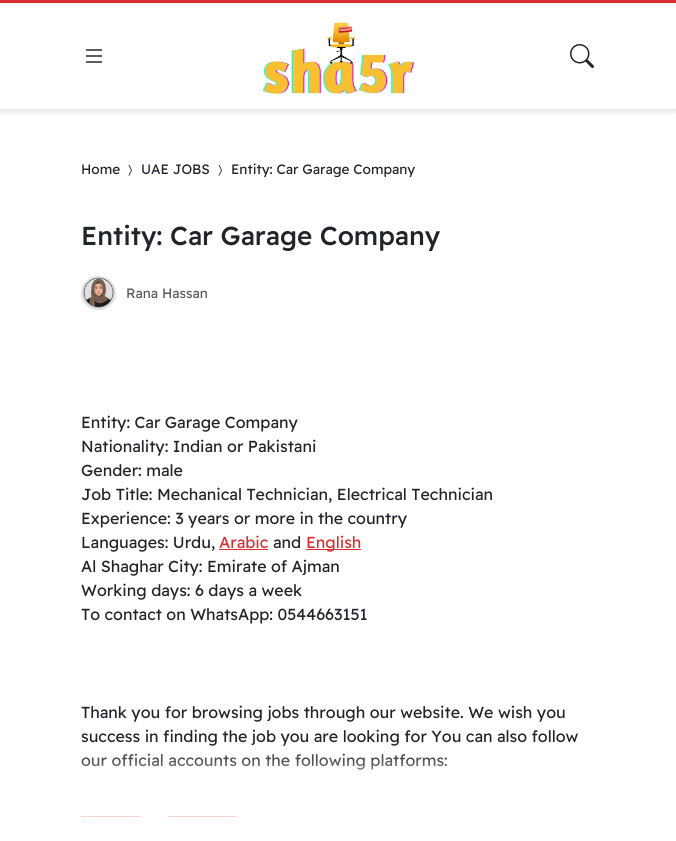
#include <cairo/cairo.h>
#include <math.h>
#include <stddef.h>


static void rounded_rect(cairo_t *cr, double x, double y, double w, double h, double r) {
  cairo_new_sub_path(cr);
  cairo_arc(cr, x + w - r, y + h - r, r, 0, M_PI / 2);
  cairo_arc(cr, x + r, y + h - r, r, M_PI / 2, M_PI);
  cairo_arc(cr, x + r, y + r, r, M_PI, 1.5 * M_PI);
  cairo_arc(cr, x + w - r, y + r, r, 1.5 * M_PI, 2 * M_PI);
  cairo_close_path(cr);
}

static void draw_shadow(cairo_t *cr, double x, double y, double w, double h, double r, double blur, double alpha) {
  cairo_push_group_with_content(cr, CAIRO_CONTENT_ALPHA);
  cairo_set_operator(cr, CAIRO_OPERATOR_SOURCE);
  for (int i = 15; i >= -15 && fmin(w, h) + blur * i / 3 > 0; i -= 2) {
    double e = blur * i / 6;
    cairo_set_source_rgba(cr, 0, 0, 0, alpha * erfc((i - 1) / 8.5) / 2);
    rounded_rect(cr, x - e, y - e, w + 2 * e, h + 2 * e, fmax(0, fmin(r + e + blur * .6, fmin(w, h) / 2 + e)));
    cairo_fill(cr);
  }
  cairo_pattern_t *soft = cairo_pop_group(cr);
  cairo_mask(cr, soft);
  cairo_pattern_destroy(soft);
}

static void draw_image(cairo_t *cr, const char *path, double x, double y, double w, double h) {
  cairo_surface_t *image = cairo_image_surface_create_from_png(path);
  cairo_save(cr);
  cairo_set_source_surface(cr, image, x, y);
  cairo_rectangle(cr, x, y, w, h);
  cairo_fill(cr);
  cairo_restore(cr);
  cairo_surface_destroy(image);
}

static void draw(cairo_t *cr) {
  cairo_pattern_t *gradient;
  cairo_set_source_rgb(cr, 1, 1, 1);
  cairo_paint(cr);
  cairo_save(cr);
  cairo_rectangle(cr, 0, 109, 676, 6);
  cairo_clip(cr);
  cairo_set_source_rgb(cr, 0, 0, 0);
  draw_shadow(cr, 0, 0, 676, 109, 0, 5, 0.2);
  cairo_restore(cr);
  cairo_set_source_rgb(cr, 214 / 255.0, 47 / 255.0, 47 / 255.0);
  cairo_rectangle(cr, 0, 0, 676, 3);
  cairo_fill(cr);
  draw_image(cr, "images/1.png", 85, 49, 18, 14);
  draw_image(cr, "images/2.png", 262, 21, 153, 75);
  draw_image(cr, "images/3.png", 570, 44, 24, 24);
  draw_image(cr, "images/4.png", 128, 164, 4, 12);
  draw_image(cr, "images/5.png", 218, 164, 4, 12);
  draw_image(cr, "images/6.png", 81, 276, 35, 34);
  cairo_rectangle(cr, 219, 549, 49, 1);
  cairo_fill(cr);
  cairo_rectangle(cr, 306, 549, 55, 1);
  cairo_fill(cr);
  cairo_rectangle(cr, 81, 816, 60, 1);
  cairo_fill(cr);
  cairo_rectangle(cr, 168, 816, 69, 1);
  cairo_fill(cr);
  cairo_select_font_face(cr, "Readex Pro", CAIRO_FONT_SLANT_NORMAL, CAIRO_FONT_WEIGHT_NORMAL);
  cairo_set_font_size(cr, 13.6);
  cairo_set_source_rgb(cr, 33 / 255.0, 37 / 255.0, 41 / 255.0);
  cairo_move_to(cr, 81, 174);
  cairo_show_text(cr, "Home");
  cairo_move_to(cr, 141, 174);
  cairo_show_text(cr, "UAE JOBS");
  cairo_move_to(cr, 231, 174);
  cairo_show_text(cr, "Entity: Car Garage Company");
  cairo_select_font_face(cr, "Readex Pro Medium", CAIRO_FONT_SLANT_NORMAL, CAIRO_FONT_WEIGHT_NORMAL);
  cairo_set_font_size(cr, 26);
  cairo_move_to(cr, 81, 245);
  cairo_show_text(cr, "Entity: Car Garage Company");
  cairo_select_font_face(cr, "Readex Pro", CAIRO_FONT_SLANT_NORMAL, CAIRO_FONT_WEIGHT_NORMAL);
  cairo_set_font_size(cr, 13.6);
  cairo_set_source_rgb(cr, 89 / 255.0, 89 / 255.0, 89 / 255.0);
  cairo_move_to(cr, 126, 298);
  cairo_show_text(cr, "Rana Hassan");
  cairo_set_font_size(cr, 16);
  cairo_set_source_rgb(cr, 33 / 255.0, 37 / 255.0, 41 / 255.0);
  cairo_move_to(cr, 81, 428);
  cairo_show_text(cr, "Entity: Car Garage Company");
  cairo_move_to(cr, 81, 452);
  cairo_show_text(cr, "Nationality: Indian or Pakistani");
  cairo_move_to(cr, 81, 476);
  cairo_show_text(cr, "Gender: male");
  cairo_move_to(cr, 81, 500);
  cairo_show_text(cr, "Job Title: Mechanical Technician, Electrical Technician");
  cairo_move_to(cr, 81, 524);
  cairo_show_text(cr, "Experience: 3 years or more in the country");
  cairo_move_to(cr, 81, 548);
  cairo_show_text(cr, "Languages: Urdu,");
  cairo_set_source_rgb(cr, 214 / 255.0, 47 / 255.0, 47 / 255.0);
  cairo_move_to(cr, 219, 548);
  cairo_show_text(cr, "Arabic");
  cairo_set_source_rgb(cr, 33 / 255.0, 37 / 255.0, 41 / 255.0);
  cairo_move_to(cr, 273, 548);
  cairo_show_text(cr, "and");
  cairo_set_source_rgb(cr, 214 / 255.0, 47 / 255.0, 47 / 255.0);
  cairo_move_to(cr, 306, 548);
  cairo_show_text(cr, "English");
  cairo_set_source_rgb(cr, 33 / 255.0, 37 / 255.0, 41 / 255.0);
  cairo_move_to(cr, 81, 572);
  cairo_show_text(cr, "Al Shaghar City: Emirate of Ajman");
  cairo_move_to(cr, 81, 596);
  cairo_show_text(cr, "Working days: 6 days a week");
  cairo_move_to(cr, 81, 620);
  cairo_show_text(cr, "To contact on WhatsApp: 0544663151");
  cairo_move_to(cr, 81, 718);
  cairo_show_text(cr, "Thank you for browsing jobs through our website. We wish you");
  cairo_move_to(cr, 81, 742);
  cairo_show_text(cr, "success in finding the job you are looking for You can also follow");
  cairo_move_to(cr, 81, 766);
  cairo_show_text(cr, "our official accounts on the following platforms:");
  gradient = cairo_pattern_create_linear(339, 752, 339, 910);
  cairo_pattern_add_color_stop_rgba(gradient, 0.05, 1, 1, 1, 0.2);
  cairo_pattern_add_color_stop_rgba(gradient, 0.2, 1, 1, 1, 0.7);
  cairo_pattern_add_color_stop_rgba(gradient, 1, 1, 1, 1, 1);
  cairo_set_source(cr, gradient);
  cairo_pattern_destroy(gradient);
  cairo_rectangle(cr, 81, 753, 366, 64);
  cairo_fill(cr);
}

int main(void) {
  cairo_surface_t *surface = cairo_image_surface_create(CAIRO_FORMAT_RGB24, 676, 841);
  cairo_t *cr = cairo_create(surface);
  cairo_font_options_t *options = cairo_font_options_create();
  cairo_font_options_set_hint_metrics(options, CAIRO_HINT_METRICS_OFF);
  cairo_font_options_set_hint_style(options, CAIRO_HINT_STYLE_NONE);
  cairo_set_font_options(cr, options);
  cairo_set_miter_limit(cr, 4);
  draw(cr);
  cairo_surface_write_to_png(surface, "out.png");
  cairo_font_options_destroy(options);
  cairo_destroy(cr);
  cairo_surface_destroy(surface);
  return 0;
}
